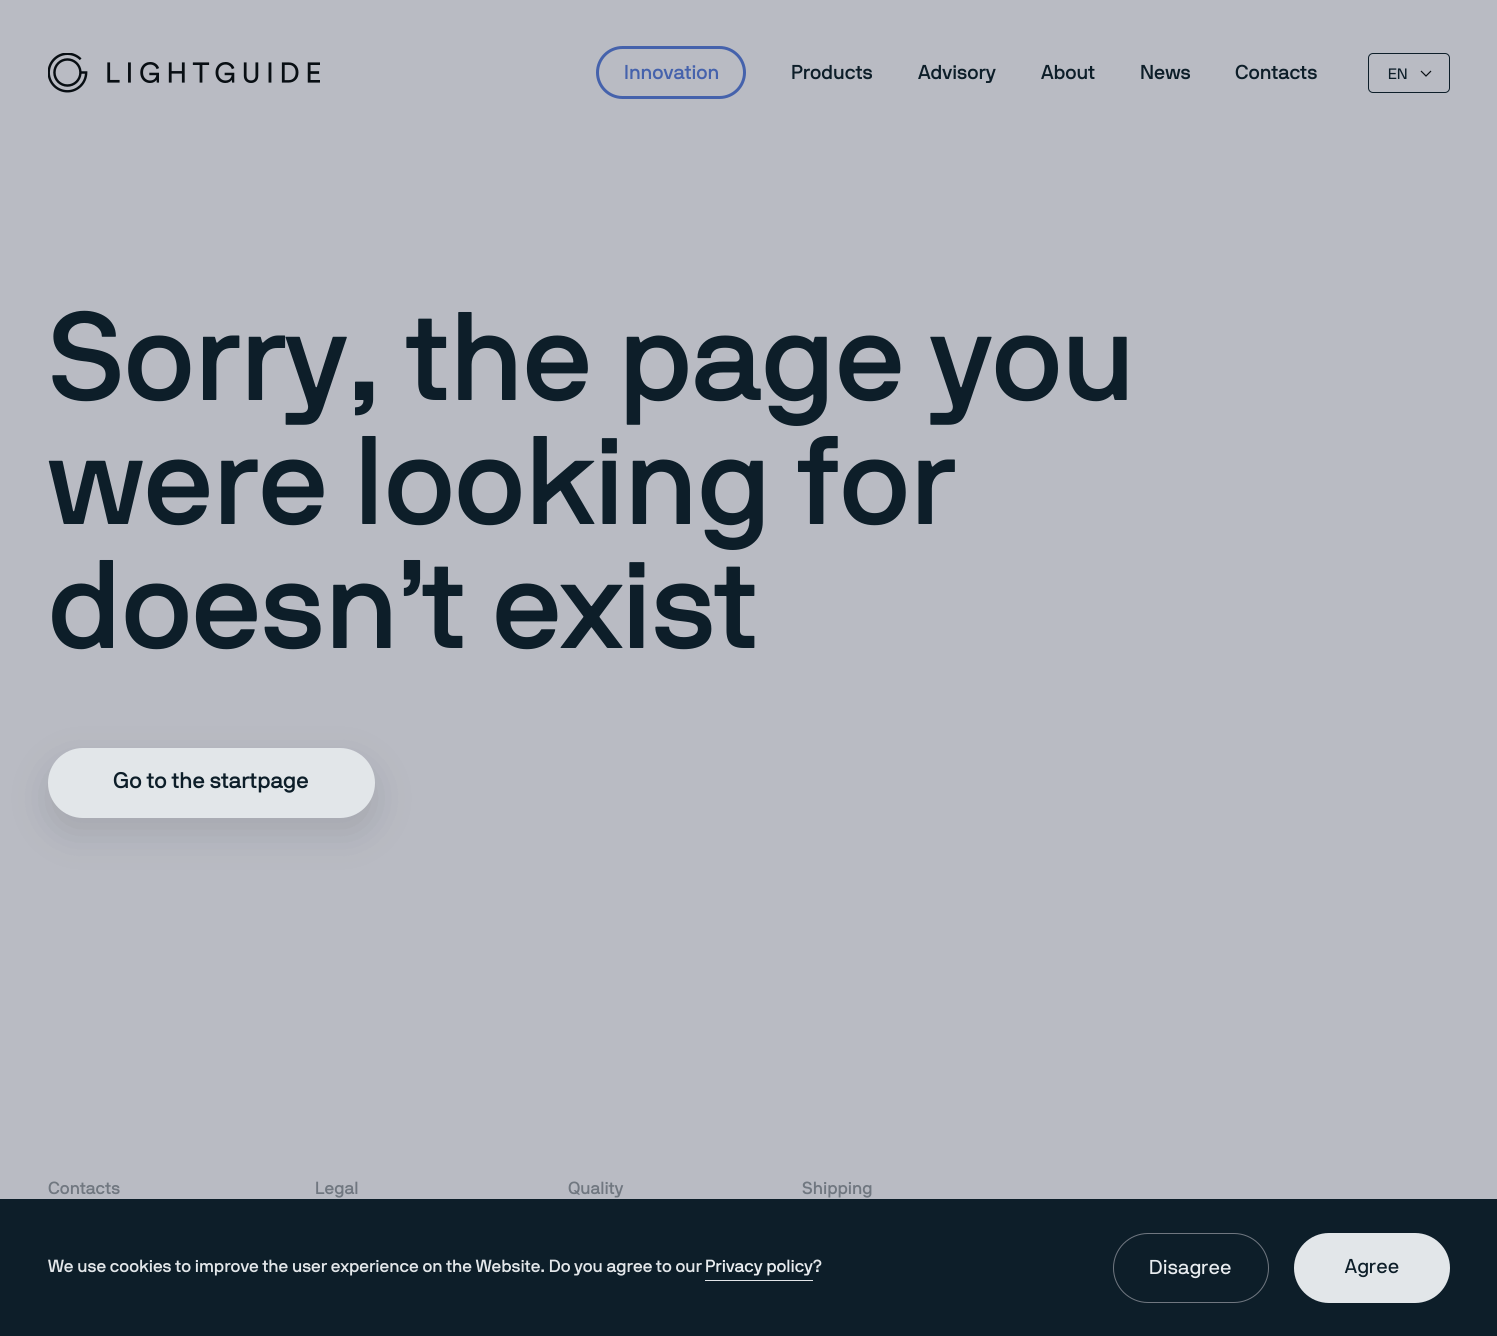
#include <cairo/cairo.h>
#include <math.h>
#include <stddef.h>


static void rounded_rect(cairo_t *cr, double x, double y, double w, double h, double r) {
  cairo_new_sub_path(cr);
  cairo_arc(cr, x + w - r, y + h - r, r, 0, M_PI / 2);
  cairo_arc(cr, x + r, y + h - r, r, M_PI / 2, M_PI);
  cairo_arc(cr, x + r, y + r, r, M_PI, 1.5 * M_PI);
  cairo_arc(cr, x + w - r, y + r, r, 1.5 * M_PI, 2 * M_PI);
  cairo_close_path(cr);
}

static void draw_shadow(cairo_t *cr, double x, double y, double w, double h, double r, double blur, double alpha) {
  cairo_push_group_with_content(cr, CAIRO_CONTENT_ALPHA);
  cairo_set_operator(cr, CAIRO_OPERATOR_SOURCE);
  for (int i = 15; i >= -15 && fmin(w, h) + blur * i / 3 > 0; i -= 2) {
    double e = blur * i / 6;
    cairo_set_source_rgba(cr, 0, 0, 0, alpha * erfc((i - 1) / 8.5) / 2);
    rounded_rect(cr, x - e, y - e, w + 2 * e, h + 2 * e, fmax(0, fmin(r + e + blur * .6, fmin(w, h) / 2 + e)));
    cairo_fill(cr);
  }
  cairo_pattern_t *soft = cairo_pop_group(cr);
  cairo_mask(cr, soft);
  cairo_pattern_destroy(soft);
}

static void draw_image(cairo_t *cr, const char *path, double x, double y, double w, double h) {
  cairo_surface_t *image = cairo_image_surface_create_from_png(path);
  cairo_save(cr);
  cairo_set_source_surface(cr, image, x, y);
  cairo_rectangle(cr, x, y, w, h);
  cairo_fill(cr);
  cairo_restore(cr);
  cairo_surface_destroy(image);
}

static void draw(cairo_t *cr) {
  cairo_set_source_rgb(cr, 185 / 255.0, 187 / 255.0, 195 / 255.0);
  cairo_paint(cr);
  draw_image(cr, "images/1.png", 48, 53, 272, 40);
  rounded_rect(cr, 597.5, 47.5, 147, 50, 25);
  cairo_set_source_rgb(cr, 69 / 255.0, 98 / 255.0, 172 / 255.0);
  cairo_set_line_width(cr, 3);
  cairo_stroke(cr);
  rounded_rect(cr, 1368.5, 53.5, 81, 39, 4.5);
  cairo_set_source_rgb(cr, 13 / 255.0, 30 / 255.0, 41 / 255.0);
  cairo_set_line_width(cr, 1);
  cairo_stroke(cr);
  cairo_new_path(cr);
  cairo_move_to(cr, 1421, 71);
  cairo_line_to(cr, 1426, 76);
  cairo_line_to(cr, 1431, 71);
  cairo_set_source_rgb(cr, 8 / 255.0, 14 / 255.0, 19 / 255.0);
  cairo_set_line_width(cr, 1.2);
  cairo_stroke(cr);
  cairo_set_source_rgb(cr, 9 / 255.0, 14 / 255.0, 20 / 255.0);
  draw_shadow(cr, 48, 763, 327, 70, 35, 20, 0.12);
  cairo_set_source_rgb(cr, 226 / 255.0, 230 / 255.0, 233 / 255.0);
  rounded_rect(cr, 48, 748, 327, 70, 35);
  cairo_fill(cr);
  cairo_set_source_rgb(cr, 13 / 255.0, 30 / 255.0, 41 / 255.0);
  cairo_rectangle(cr, 0, 1199, 1497, 137);
  cairo_fill(cr);
  cairo_set_source_rgb(cr, 226 / 255.0, 230 / 255.0, 233 / 255.0);
  cairo_rectangle(cr, 705, 1280, 108, 1);
  cairo_fill(cr);
  rounded_rect(cr, 1113.5, 1233.5, 155, 69, 34.5);
  cairo_set_source_rgb(cr, 112 / 255.0, 119 / 255.0, 128 / 255.0);
  cairo_set_line_width(cr, 1);
  cairo_stroke(cr);
  cairo_set_source_rgb(cr, 226 / 255.0, 230 / 255.0, 233 / 255.0);
  rounded_rect(cr, 1294, 1233, 156, 70, 35);
  cairo_fill(cr);
  cairo_select_font_face(cr, "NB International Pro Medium", CAIRO_FONT_SLANT_NORMAL, CAIRO_FONT_WEIGHT_NORMAL);
  cairo_set_font_size(cr, 20);
  cairo_set_source_rgb(cr, 69 / 255.0, 98 / 255.0, 172 / 255.0);
  cairo_move_to(cr, 624, 79);
  cairo_show_text(cr, "Innovation");
  cairo_set_source_rgb(cr, 13 / 255.0, 30 / 255.0, 41 / 255.0);
  cairo_move_to(cr, 791, 79);
  cairo_show_text(cr, "Products");
  cairo_move_to(cr, 918, 79);
  cairo_show_text(cr, "Advisory");
  cairo_move_to(cr, 1041, 79);
  cairo_show_text(cr, "About");
  cairo_move_to(cr, 1140, 79);
  cairo_show_text(cr, "News");
  cairo_move_to(cr, 1235, 79);
  cairo_show_text(cr, "Contacts");
  cairo_select_font_face(cr, "NB International Pro", CAIRO_FONT_SLANT_NORMAL, CAIRO_FONT_WEIGHT_NORMAL);
  cairo_set_font_size(cr, 15);
  cairo_move_to(cr, 1388, 79);
  cairo_show_text(cr, "EN");
  cairo_select_font_face(cr, "NB International Pro Medium", CAIRO_FONT_SLANT_NORMAL, CAIRO_FONT_WEIGHT_NORMAL);
  cairo_set_font_size(cr, 125);
  cairo_move_to(cr, 48, 400);
  cairo_show_text(cr, "Sorry, the page you");
  cairo_move_to(cr, 48, 524);
  cairo_show_text(cr, "were looking for");
  cairo_move_to(cr, 48, 648);
  cairo_show_text(cr, "doesn’t exist");
  cairo_set_font_size(cr, 22.5);
  cairo_move_to(cr, 113, 788);
  cairo_show_text(cr, "Go to the startpage");
  cairo_set_font_size(cr, 17.5);
  cairo_set_source_rgb(cr, 112 / 255.0, 119 / 255.0, 128 / 255.0);
  cairo_move_to(cr, 48, 1194);
  cairo_show_text(cr, "Contacts");
  cairo_move_to(cr, 315, 1194);
  cairo_show_text(cr, "Legal");
  cairo_move_to(cr, 568, 1194);
  cairo_show_text(cr, "Quality");
  cairo_move_to(cr, 802, 1194);
  cairo_show_text(cr, "Shipping");
  cairo_set_source_rgb(cr, 226 / 255.0, 230 / 255.0, 233 / 255.0);
  cairo_move_to(cr, 48, 1272);
  cairo_show_text(cr, "We use cookies to improve the user experience on the Website. Do you agree to our");
  cairo_set_source_rgb(cr, 232 / 255.0, 236 / 255.0, 239 / 255.0);
  cairo_move_to(cr, 705, 1272);
  cairo_show_text(cr, "Privacy policy");
  cairo_set_source_rgb(cr, 226 / 255.0, 230 / 255.0, 233 / 255.0);
  cairo_move_to(cr, 813, 1272);
  cairo_show_text(cr, "?");
  cairo_select_font_face(cr, "NB International Pro", CAIRO_FONT_SLANT_NORMAL, CAIRO_FONT_WEIGHT_NORMAL);
  cairo_set_font_size(cr, 20);
  cairo_set_source_rgb(cr, 232 / 255.0, 236 / 255.0, 239 / 255.0);
  cairo_move_to(cr, 1149, 1274);
  cairo_show_text(cr, "Disagree");
  cairo_set_source_rgb(cr, 13 / 255.0, 30 / 255.0, 41 / 255.0);
  cairo_move_to(cr, 1344, 1273);
  cairo_show_text(cr, "Agree");
}

int main(void) {
  cairo_surface_t *surface = cairo_image_surface_create(CAIRO_FORMAT_RGB24, 1497, 1336);
  cairo_t *cr = cairo_create(surface);
  cairo_font_options_t *options = cairo_font_options_create();
  cairo_font_options_set_hint_metrics(options, CAIRO_HINT_METRICS_OFF);
  cairo_font_options_set_hint_style(options, CAIRO_HINT_STYLE_NONE);
  cairo_set_font_options(cr, options);
  cairo_set_miter_limit(cr, 4);
  draw(cr);
  cairo_surface_write_to_png(surface, "out.png");
  cairo_font_options_destroy(options);
  cairo_destroy(cr);
  cairo_surface_destroy(surface);
  return 0;
}
